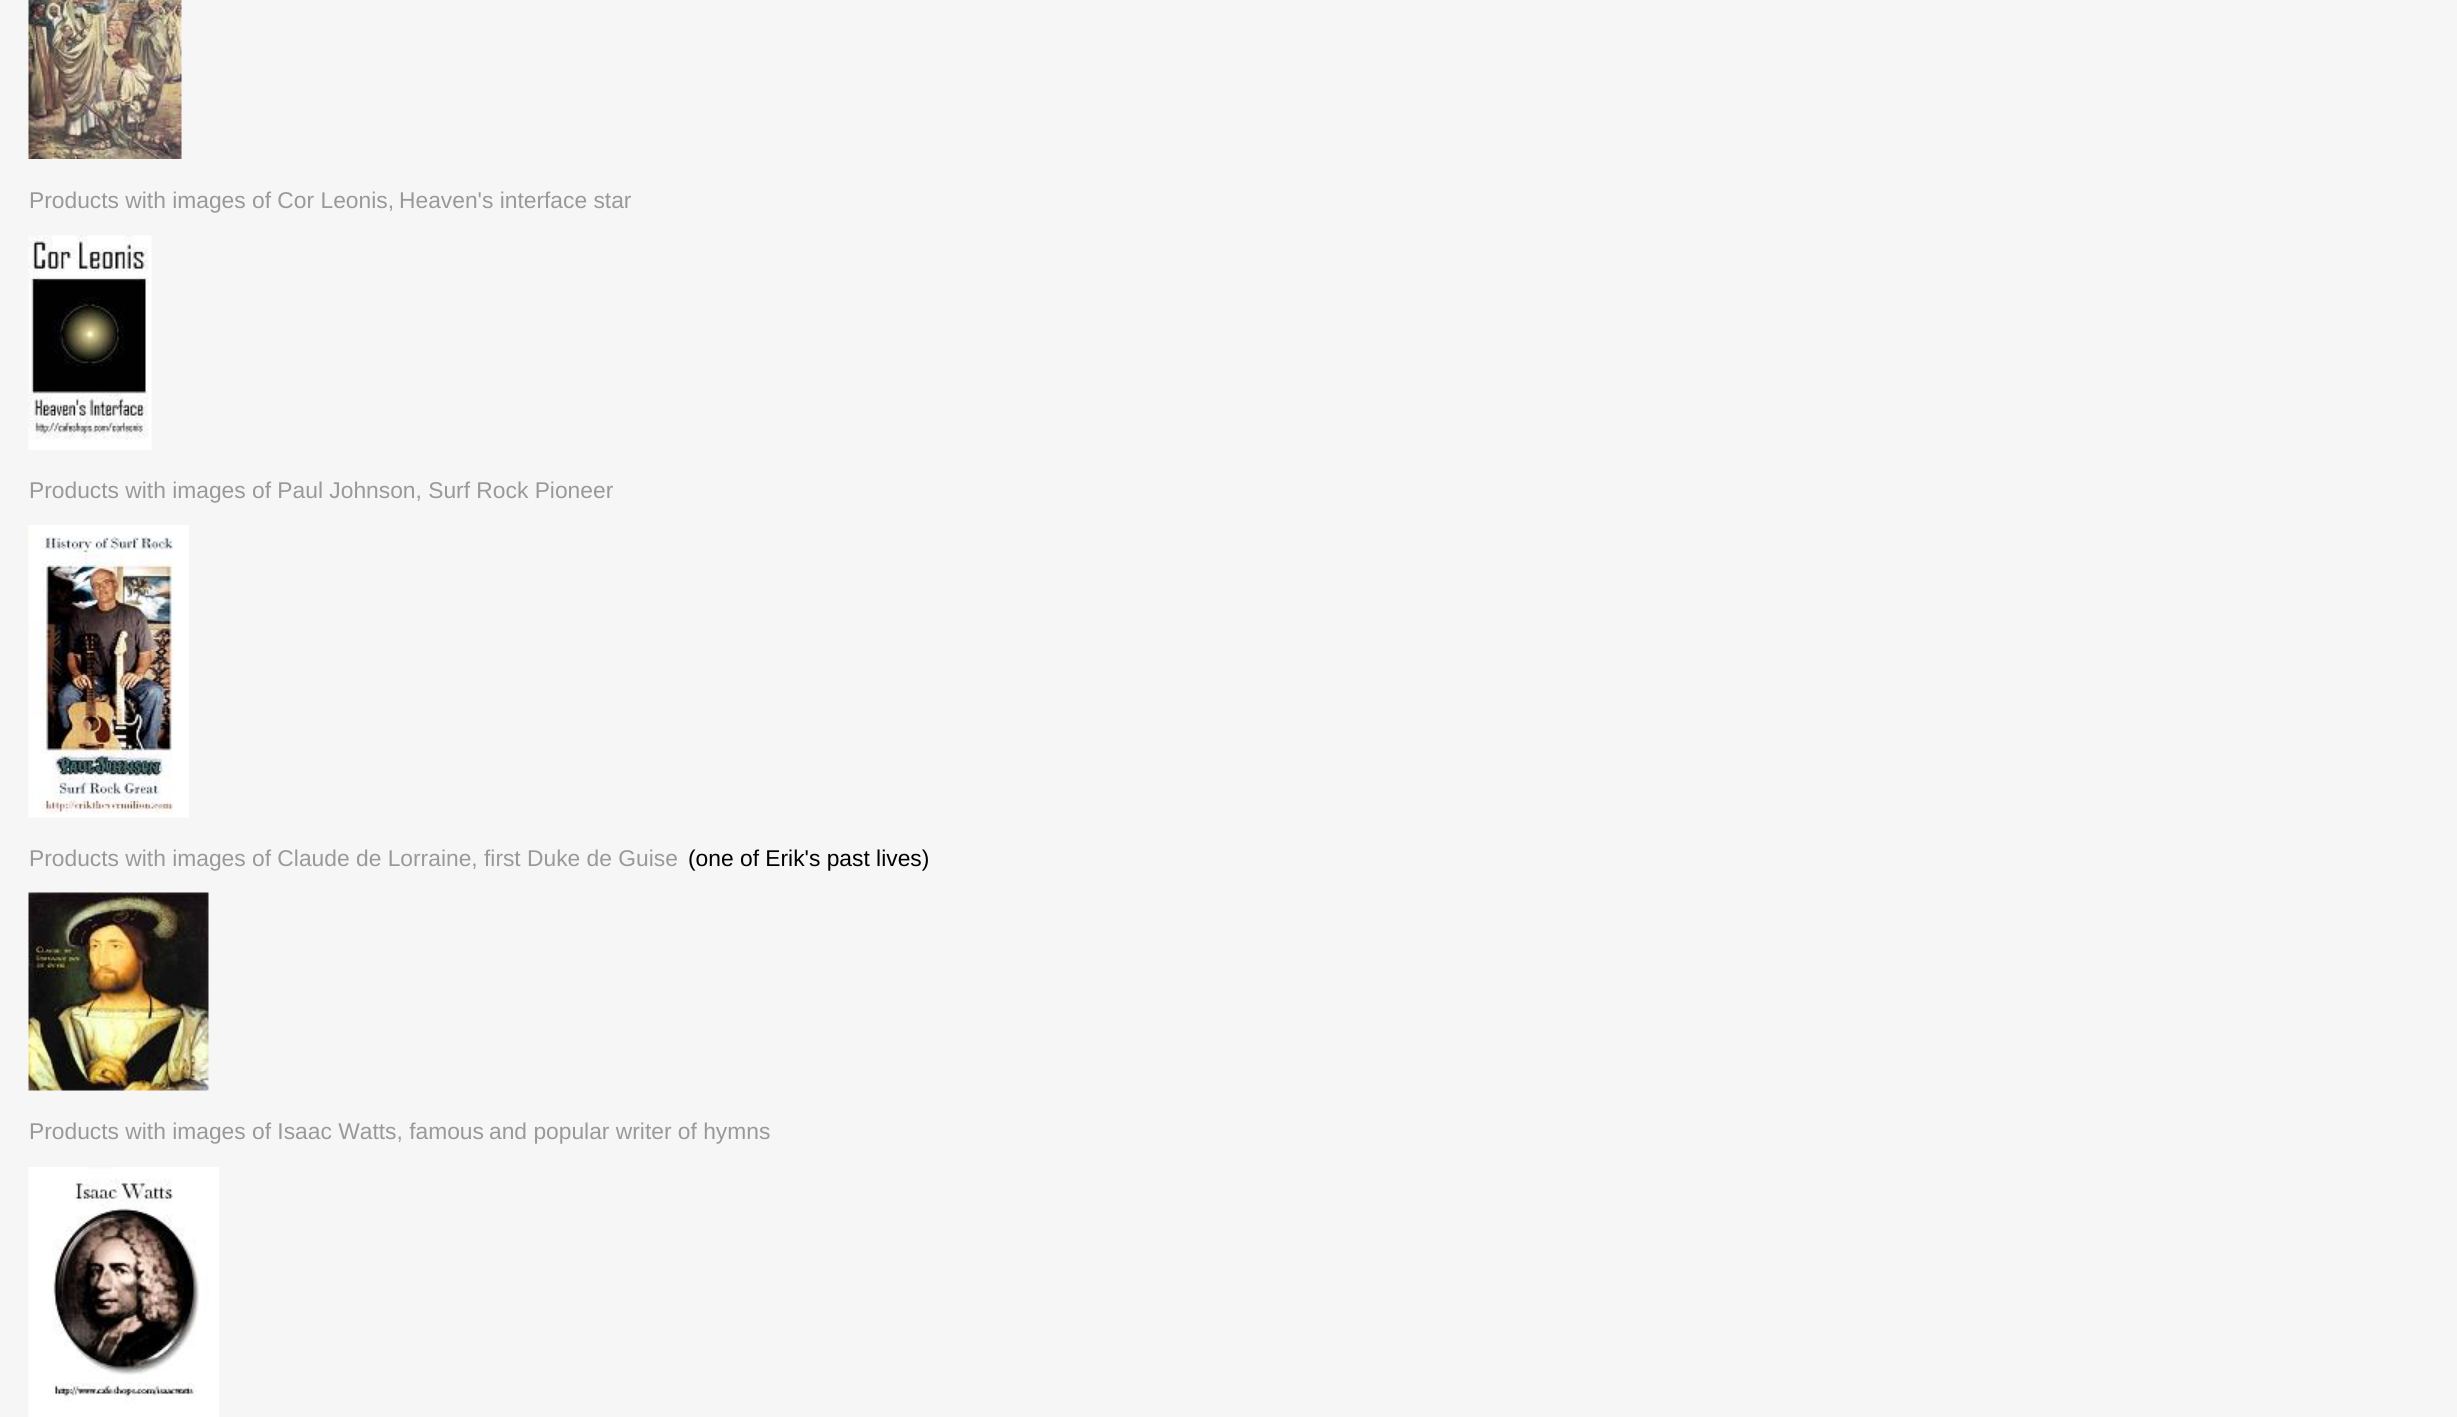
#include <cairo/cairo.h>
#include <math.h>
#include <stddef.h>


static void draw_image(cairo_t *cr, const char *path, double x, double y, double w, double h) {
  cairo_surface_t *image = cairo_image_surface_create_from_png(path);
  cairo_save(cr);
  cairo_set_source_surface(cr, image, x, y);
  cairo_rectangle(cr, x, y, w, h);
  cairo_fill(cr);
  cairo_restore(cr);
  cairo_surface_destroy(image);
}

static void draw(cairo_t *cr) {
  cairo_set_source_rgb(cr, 246 / 255.0, 246 / 255.0, 246 / 255.0);
  cairo_paint(cr);
  draw_image(cr, "images/1.png", 28, 0, 154, 159);
  draw_image(cr, "images/2.png", 28, 235, 124, 215);
  draw_image(cr, "images/3.png", 28, 525, 161, 293);
  draw_image(cr, "images/4.png", 28, 892, 181, 199);
  draw_image(cr, "images/5.png", 28, 1167, 191, 250);
  cairo_select_font_face(cr, "Liberation Sans", CAIRO_FONT_SLANT_NORMAL, CAIRO_FONT_WEIGHT_NORMAL);
  cairo_set_font_size(cr, 22.8);
  cairo_set_source_rgb(cr, 153 / 255.0, 153 / 255.0, 153 / 255.0);
  cairo_move_to(cr, 29, 208);
  cairo_show_text(cr, "Products with images of Cor Leonis,");
  cairo_move_to(cr, 399, 208);
  cairo_show_text(cr, "Heaven's interface star");
  cairo_move_to(cr, 29, 498);
  cairo_show_text(cr, "Products with images of Paul Johnson, Surf Rock Pioneer");
  cairo_move_to(cr, 29, 866);
  cairo_show_text(cr, "Products with images of Claude de Lorraine, first Duke de Guise");
  cairo_set_source_rgb(cr, 0, 0, 0);
  cairo_move_to(cr, 688, 866);
  cairo_show_text(cr, "(one of Erik's past lives)");
  cairo_set_source_rgb(cr, 153 / 255.0, 153 / 255.0, 153 / 255.0);
  cairo_move_to(cr, 29, 1139);
  cairo_show_text(cr, "Products with images of Isaac Watts, famous");
  cairo_move_to(cr, 489, 1139);
  cairo_show_text(cr, "and popular writer of hymns");
}

int main(void) {
  cairo_surface_t *surface = cairo_image_surface_create(CAIRO_FORMAT_RGB24, 2457, 1417);
  cairo_t *cr = cairo_create(surface);
  cairo_font_options_t *options = cairo_font_options_create();
  cairo_font_options_set_hint_metrics(options, CAIRO_HINT_METRICS_OFF);
  cairo_font_options_set_hint_style(options, CAIRO_HINT_STYLE_NONE);
  cairo_set_font_options(cr, options);
  cairo_set_miter_limit(cr, 4);
  draw(cr);
  cairo_surface_write_to_png(surface, "out.png");
  cairo_font_options_destroy(options);
  cairo_destroy(cr);
  cairo_surface_destroy(surface);
  return 0;
}
